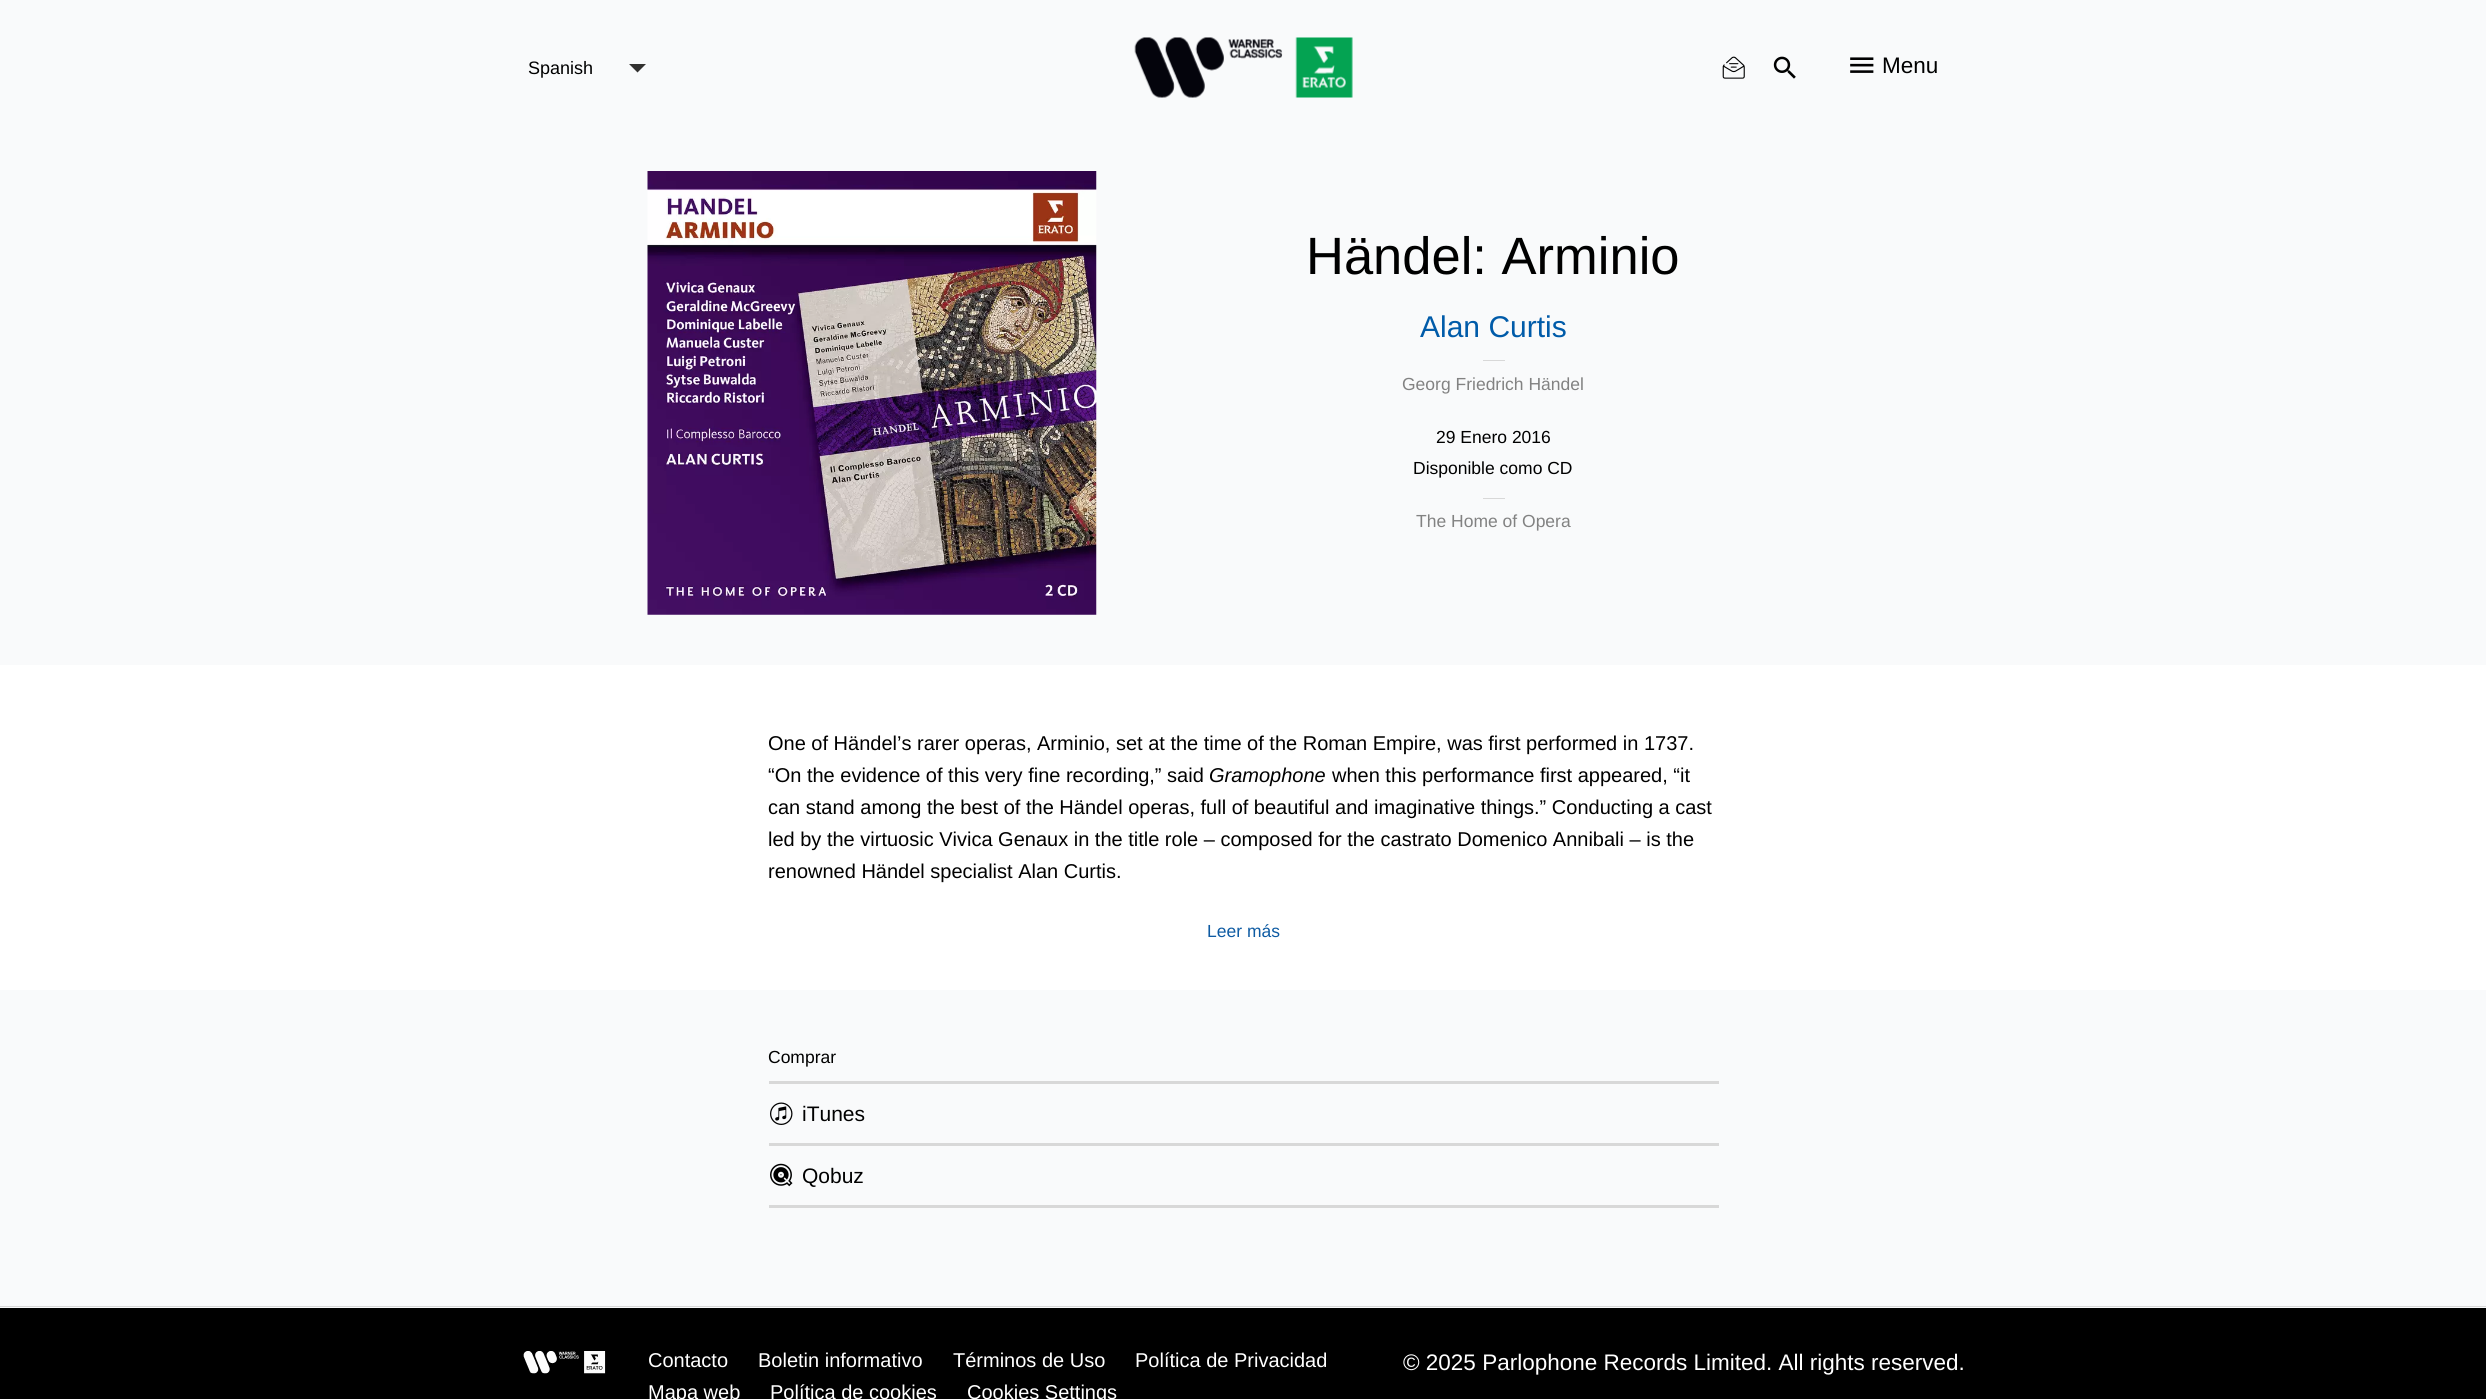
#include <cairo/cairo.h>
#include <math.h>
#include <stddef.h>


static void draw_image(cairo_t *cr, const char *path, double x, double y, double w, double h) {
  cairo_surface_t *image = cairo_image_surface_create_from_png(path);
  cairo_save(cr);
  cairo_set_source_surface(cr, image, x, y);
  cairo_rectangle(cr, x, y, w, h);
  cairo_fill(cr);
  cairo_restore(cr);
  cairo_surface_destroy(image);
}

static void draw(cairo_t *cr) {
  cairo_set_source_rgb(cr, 1, 1, 1);
  cairo_paint(cr);
  cairo_set_source_rgb(cr, 249 / 255.0, 250 / 255.0, 251 / 255.0);
  cairo_rectangle(cr, 0, 0, 2486, 665);
  cairo_fill(cr);
  cairo_set_source_rgb(cr, 50 / 255.0, 49 / 255.0, 48 / 255.0);
  cairo_new_path(cr);
  cairo_move_to(cr, 629, 64);
  cairo_line_to(cr, 646, 64);
  cairo_line_to(cr, 637.5, 72.5);
  cairo_close_path(cr);
  cairo_fill(cr);
  draw_image(cr, "images/1.png", 1134, 37, 219, 61);
  draw_image(cr, "images/2.png", 1722, 56, 23, 23);
  draw_image(cr, "images/3.png", 1773, 56, 23, 23);
  draw_image(cr, "images/4.png", 1850, 57, 24, 16);
  draw_image(cr, "images/5.png", 647, 171, 450, 444);
  cairo_set_source_rgb(cr, 216 / 255.0, 216 / 255.0, 216 / 255.0);
  cairo_rectangle(cr, 1483, 360, 22, 1);
  cairo_fill(cr);
  cairo_rectangle(cr, 1483, 498, 22, 1);
  cairo_fill(cr);
  cairo_set_source_rgb(cr, 249 / 255.0, 250 / 255.0, 251 / 255.0);
  cairo_rectangle(cr, 0, 990, 2486, 318);
  cairo_fill(cr);
  cairo_set_source_rgb(cr, 216 / 255.0, 216 / 255.0, 216 / 255.0);
  cairo_rectangle(cr, 0, 1306, 2486, 1);
  cairo_fill(cr);
  cairo_rectangle(cr, 769, 1081, 950, 3);
  cairo_fill(cr);
  cairo_rectangle(cr, 769, 1143, 950, 3);
  cairo_fill(cr);
  draw_image(cr, "images/6.png", 770, 1102, 23, 23);
  cairo_rectangle(cr, 769, 1205, 950, 3);
  cairo_fill(cr);
  draw_image(cr, "images/7.png", 770, 1163, 23, 24);
  cairo_set_source_rgb(cr, 0, 0, 0);
  cairo_rectangle(cr, 0, 1308, 2486, 91);
  cairo_fill(cr);
  draw_image(cr, "images/8.png", 523, 1351, 83, 23);
  cairo_select_font_face(cr, "Liberation Sans", CAIRO_FONT_SLANT_NORMAL, CAIRO_FONT_WEIGHT_NORMAL);
  cairo_set_font_size(cr, 18);
  cairo_move_to(cr, 528, 74);
  cairo_show_text(cr, "Spanish");
  cairo_set_font_size(cr, 22.5);
  cairo_move_to(cr, 1882, 73);
  cairo_show_text(cr, "Menu");
  cairo_set_font_size(cr, 52.5);
  cairo_move_to(cr, 1306, 274);
  cairo_show_text(cr, "Händel: Arminio");
  cairo_set_font_size(cr, 30);
  cairo_set_source_rgb(cr, 0, 91 / 255.0, 169 / 255.0);
  cairo_move_to(cr, 1420, 337);
  cairo_show_text(cr, "Alan Curtis");
  cairo_set_font_size(cr, 17.5);
  cairo_set_source_rgb(cr, 130 / 255.0, 130 / 255.0, 130 / 255.0);
  cairo_move_to(cr, 1402, 390);
  cairo_show_text(cr, "Georg Friedrich Händel");
  cairo_set_source_rgb(cr, 0, 0, 0);
  cairo_move_to(cr, 1436, 443);
  cairo_show_text(cr, "29 Enero 2016");
  cairo_move_to(cr, 1413, 474);
  cairo_show_text(cr, "Disponible como CD");
  cairo_set_source_rgb(cr, 130 / 255.0, 130 / 255.0, 130 / 255.0);
  cairo_move_to(cr, 1416, 527);
  cairo_show_text(cr, "The Home of Opera");
  cairo_set_font_size(cr, 20);
  cairo_set_source_rgb(cr, 0, 0, 0);
  cairo_move_to(cr, 768, 750);
  cairo_show_text(cr, "One of Händel’s rarer operas, Arminio, set at the time of the Roman Empire, was first performed in 1737.");
  cairo_move_to(cr, 768, 782);
  cairo_show_text(cr, "“On the evidence of this very fine recording,” said");
  cairo_select_font_face(cr, "Liberation Sans", CAIRO_FONT_SLANT_ITALIC, CAIRO_FONT_WEIGHT_NORMAL);
  cairo_move_to(cr, 1209, 782);
  cairo_show_text(cr, "Gramophone");
  cairo_select_font_face(cr, "Liberation Sans", CAIRO_FONT_SLANT_NORMAL, CAIRO_FONT_WEIGHT_NORMAL);
  cairo_move_to(cr, 1332, 782);
  cairo_show_text(cr, "when this performance first appeared, “it");
  cairo_move_to(cr, 768, 814);
  cairo_show_text(cr, "can stand among the best of the Händel operas, full of beautiful and imaginative things.” Conducting a cast");
  cairo_move_to(cr, 768, 846);
  cairo_show_text(cr, "led by the virtuosic Vivica Genaux in the title role – composed for the castrato Domenico Annibali – is the");
  cairo_move_to(cr, 768, 878);
  cairo_show_text(cr, "renowned Händel specialist Alan Curtis.");
  cairo_set_font_size(cr, 17.5);
  cairo_set_source_rgb(cr, 14 / 255.0, 91 / 255.0, 163 / 255.0);
  cairo_move_to(cr, 1207, 937);
  cairo_show_text(cr, "Leer más");
  cairo_set_source_rgb(cr, 0, 0, 0);
  cairo_move_to(cr, 768, 1063);
  cairo_show_text(cr, "Comprar");
  cairo_set_font_size(cr, 21);
  cairo_move_to(cr, 802, 1121);
  cairo_show_text(cr, "iTunes");
  cairo_move_to(cr, 802, 1183);
  cairo_show_text(cr, "Qobuz");
  cairo_set_font_size(cr, 20);
  cairo_set_source_rgb(cr, 1, 1, 1);
  cairo_move_to(cr, 648, 1367);
  cairo_show_text(cr, "Contacto");
  cairo_move_to(cr, 758, 1367);
  cairo_show_text(cr, "Boletin informativo");
  cairo_move_to(cr, 953, 1367);
  cairo_show_text(cr, "Términos de Uso");
  cairo_move_to(cr, 1135, 1367);
  cairo_show_text(cr, "Política de Privacidad");
  cairo_move_to(cr, 648, 1399);
  cairo_show_text(cr, "Mapa web");
  cairo_move_to(cr, 770, 1399);
  cairo_show_text(cr, "Política de cookies");
  cairo_move_to(cr, 967, 1399);
  cairo_show_text(cr, "Cookies Settings");
  cairo_set_font_size(cr, 22.5);
  cairo_move_to(cr, 1403, 1370);
  cairo_show_text(cr, "© 2025 Parlophone Records Limited. All rights reserved.");
}

int main(void) {
  cairo_surface_t *surface = cairo_image_surface_create(CAIRO_FORMAT_RGB24, 2486, 1399);
  cairo_t *cr = cairo_create(surface);
  cairo_font_options_t *options = cairo_font_options_create();
  cairo_font_options_set_hint_metrics(options, CAIRO_HINT_METRICS_OFF);
  cairo_font_options_set_hint_style(options, CAIRO_HINT_STYLE_NONE);
  cairo_set_font_options(cr, options);
  cairo_set_miter_limit(cr, 4);
  draw(cr);
  cairo_surface_write_to_png(surface, "out.png");
  cairo_font_options_destroy(options);
  cairo_destroy(cr);
  cairo_surface_destroy(surface);
  return 0;
}
